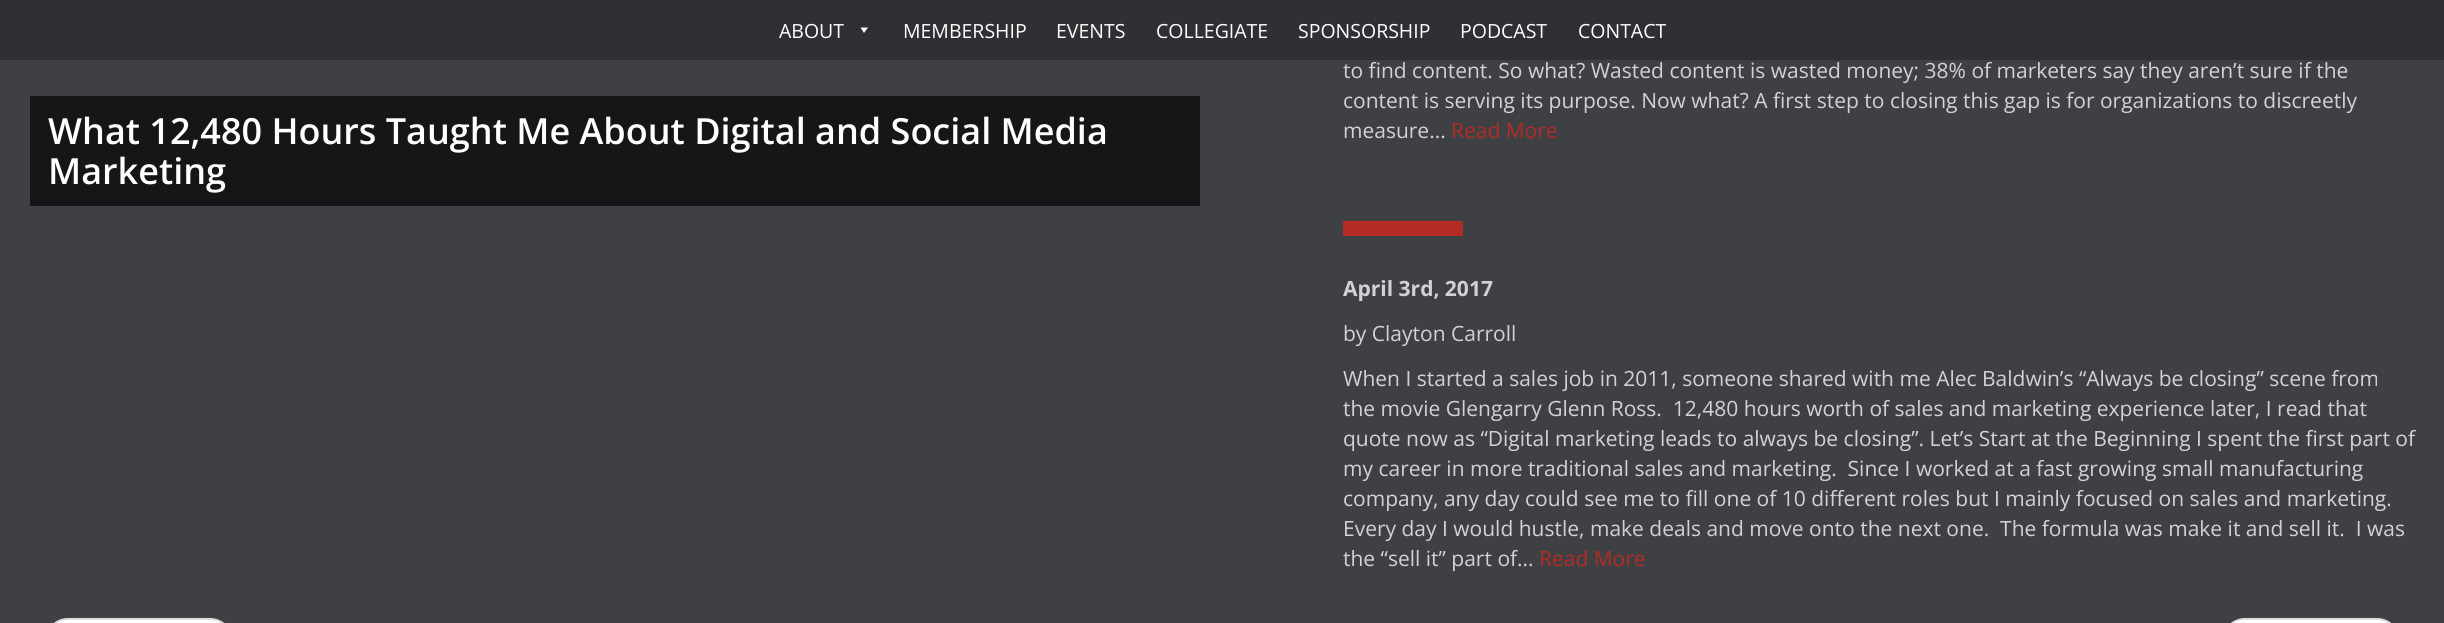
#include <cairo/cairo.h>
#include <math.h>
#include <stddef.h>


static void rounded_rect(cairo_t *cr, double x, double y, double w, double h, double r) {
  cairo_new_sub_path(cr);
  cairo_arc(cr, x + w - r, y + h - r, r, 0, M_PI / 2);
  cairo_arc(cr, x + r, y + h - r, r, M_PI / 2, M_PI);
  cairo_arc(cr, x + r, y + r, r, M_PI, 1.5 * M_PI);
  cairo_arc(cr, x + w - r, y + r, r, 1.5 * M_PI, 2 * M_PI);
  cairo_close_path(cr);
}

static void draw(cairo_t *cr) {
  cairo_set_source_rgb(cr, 63 / 255.0, 64 / 255.0, 68 / 255.0);
  cairo_paint(cr);
  cairo_set_source_rgb(cr, 47 / 255.0, 48 / 255.0, 52 / 255.0);
  cairo_rectangle(cr, 0, 0, 2444, 60);
  cairo_fill(cr);
  cairo_set_source_rgb(cr, 1, 1, 1);
  cairo_new_path(cr);
  cairo_move_to(cr, 868, 27.5);
  cairo_line_to(cr, 864, 33);
  cairo_line_to(cr, 860.5, 27.5);
  cairo_close_path(cr);
  cairo_fill(cr);
  cairo_set_source_rgb(cr, 22 / 255.0, 22 / 255.0, 24 / 255.0);
  cairo_rectangle(cr, 30, 96, 1170, 110);
  cairo_fill(cr);
  cairo_set_source_rgb(cr, 178 / 255.0, 43 / 255.0, 37 / 255.0);
  cairo_rectangle(cr, 1343, 221, 120, 15);
  cairo_fill(cr);
  cairo_set_source_rgb(cr, 1, 1, 1);
  rounded_rect(cr, 46, 619, 186, 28, 22);
  cairo_fill_preserve(cr);
  cairo_set_source_rgb(cr, 221 / 255.0, 221 / 255.0, 221 / 255.0);
  cairo_stroke(cr);
  cairo_set_source_rgb(cr, 1, 1, 1);
  rounded_rect(cr, 2223, 619, 176, 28, 22);
  cairo_fill_preserve(cr);
  cairo_set_source_rgb(cr, 221 / 255.0, 221 / 255.0, 221 / 255.0);
  cairo_stroke(cr);
  cairo_select_font_face(cr, "Open Sans", CAIRO_FONT_SLANT_NORMAL, CAIRO_FONT_WEIGHT_NORMAL);
  cairo_set_font_size(cr, 19.5);
  cairo_set_source_rgb(cr, 1, 1, 1);
  cairo_move_to(cr, 779, 38);
  cairo_show_text(cr, "ABOUT");
  cairo_move_to(cr, 903, 38);
  cairo_show_text(cr, "MEMBERSHIP");
  cairo_move_to(cr, 1056, 38);
  cairo_show_text(cr, "EVENTS");
  cairo_move_to(cr, 1156, 38);
  cairo_show_text(cr, "COLLEGIATE");
  cairo_move_to(cr, 1298, 38);
  cairo_show_text(cr, "SPONSORSHIP");
  cairo_move_to(cr, 1460, 38);
  cairo_show_text(cr, "PODCAST");
  cairo_move_to(cr, 1578, 38);
  cairo_show_text(cr, "CONTACT");
  cairo_set_font_size(cr, 21);
  cairo_set_source_rgb(cr, 209 / 255.0, 210 / 255.0, 211 / 255.0);
  cairo_move_to(cr, 1343, 78);
  cairo_show_text(cr, "to find content. So what? Wasted content is wasted money; 38% of marketers say they aren’t sure if the");
  cairo_move_to(cr, 1343, 108);
  cairo_show_text(cr, "content is serving its purpose. Now what? A first step to closing this gap is for organizations to discreetly");
  cairo_move_to(cr, 1343, 138);
  cairo_show_text(cr, "measure...");
  cairo_set_source_rgb(cr, 178 / 255.0, 43 / 255.0, 37 / 255.0);
  cairo_move_to(cr, 1451, 138);
  cairo_show_text(cr, "Read More");
  cairo_select_font_face(cr, "Open Sans SemiBold", CAIRO_FONT_SLANT_NORMAL, CAIRO_FONT_WEIGHT_NORMAL);
  cairo_set_font_size(cr, 36);
  cairo_set_source_rgb(cr, 1, 1, 1);
  cairo_move_to(cr, 48, 144);
  cairo_show_text(cr, "What 12,480 Hours Taught Me About Digital and Social Media");
  cairo_move_to(cr, 48, 184);
  cairo_show_text(cr, "Marketing");
  cairo_select_font_face(cr, "Open Sans", CAIRO_FONT_SLANT_NORMAL, CAIRO_FONT_WEIGHT_BOLD);
  cairo_set_font_size(cr, 21);
  cairo_set_source_rgb(cr, 209 / 255.0, 210 / 255.0, 211 / 255.0);
  cairo_move_to(cr, 1343, 296);
  cairo_show_text(cr, "April 3rd, 2017");
  cairo_select_font_face(cr, "Open Sans", CAIRO_FONT_SLANT_NORMAL, CAIRO_FONT_WEIGHT_NORMAL);
  cairo_move_to(cr, 1343, 341);
  cairo_show_text(cr, "by Clayton Carroll");
  cairo_move_to(cr, 1343, 386);
  cairo_show_text(cr, "When I started a sales job in 2011, someone shared with me Alec Baldwin’s “Always be closing” scene from");
  cairo_move_to(cr, 1343, 416);
  cairo_show_text(cr, "the movie Glengarry Glenn Ross.  12,480 hours worth of sales and marketing experience later, I read that");
  cairo_move_to(cr, 1343, 446);
  cairo_show_text(cr, "quote now as “Digital marketing leads to always be closing”. Let’s Start at the Beginning I spent the first part of");
  cairo_move_to(cr, 1343, 476);
  cairo_show_text(cr, "my career in more traditional sales and marketing.  Since I worked at a fast growing small manufacturing");
  cairo_move_to(cr, 1343, 506);
  cairo_show_text(cr, "company, any day could see me to fill one of 10 different roles but I mainly focused on sales and marketing.");
  cairo_move_to(cr, 1343, 536);
  cairo_show_text(cr, "Every day I would hustle, make deals and move onto the next one.  The formula was make it and sell it.  I was");
  cairo_move_to(cr, 1343, 566);
  cairo_show_text(cr, "the “sell it” part of...");
  cairo_set_source_rgb(cr, 178 / 255.0, 43 / 255.0, 37 / 255.0);
  cairo_move_to(cr, 1539, 566);
  cairo_show_text(cr, "Read More");
}

int main(void) {
  cairo_surface_t *surface = cairo_image_surface_create(CAIRO_FORMAT_RGB24, 2444, 623);
  cairo_t *cr = cairo_create(surface);
  cairo_font_options_t *options = cairo_font_options_create();
  cairo_font_options_set_hint_metrics(options, CAIRO_HINT_METRICS_OFF);
  cairo_font_options_set_hint_style(options, CAIRO_HINT_STYLE_NONE);
  cairo_set_font_options(cr, options);
  cairo_set_miter_limit(cr, 4);
  draw(cr);
  cairo_surface_write_to_png(surface, "out.png");
  cairo_font_options_destroy(options);
  cairo_destroy(cr);
  cairo_surface_destroy(surface);
  return 0;
}
